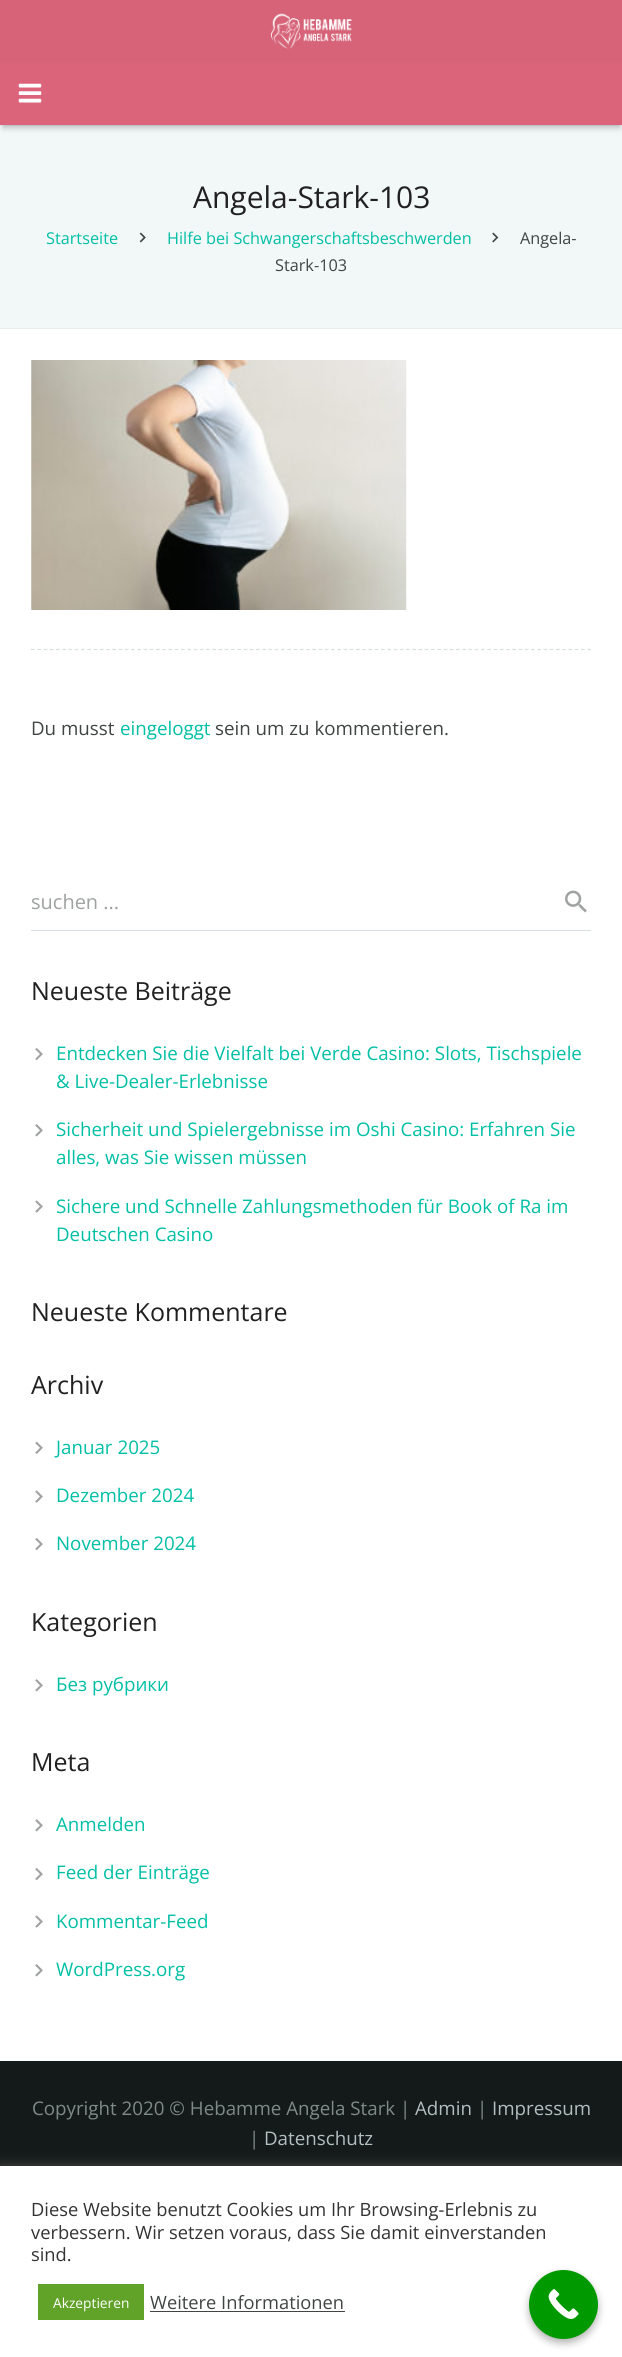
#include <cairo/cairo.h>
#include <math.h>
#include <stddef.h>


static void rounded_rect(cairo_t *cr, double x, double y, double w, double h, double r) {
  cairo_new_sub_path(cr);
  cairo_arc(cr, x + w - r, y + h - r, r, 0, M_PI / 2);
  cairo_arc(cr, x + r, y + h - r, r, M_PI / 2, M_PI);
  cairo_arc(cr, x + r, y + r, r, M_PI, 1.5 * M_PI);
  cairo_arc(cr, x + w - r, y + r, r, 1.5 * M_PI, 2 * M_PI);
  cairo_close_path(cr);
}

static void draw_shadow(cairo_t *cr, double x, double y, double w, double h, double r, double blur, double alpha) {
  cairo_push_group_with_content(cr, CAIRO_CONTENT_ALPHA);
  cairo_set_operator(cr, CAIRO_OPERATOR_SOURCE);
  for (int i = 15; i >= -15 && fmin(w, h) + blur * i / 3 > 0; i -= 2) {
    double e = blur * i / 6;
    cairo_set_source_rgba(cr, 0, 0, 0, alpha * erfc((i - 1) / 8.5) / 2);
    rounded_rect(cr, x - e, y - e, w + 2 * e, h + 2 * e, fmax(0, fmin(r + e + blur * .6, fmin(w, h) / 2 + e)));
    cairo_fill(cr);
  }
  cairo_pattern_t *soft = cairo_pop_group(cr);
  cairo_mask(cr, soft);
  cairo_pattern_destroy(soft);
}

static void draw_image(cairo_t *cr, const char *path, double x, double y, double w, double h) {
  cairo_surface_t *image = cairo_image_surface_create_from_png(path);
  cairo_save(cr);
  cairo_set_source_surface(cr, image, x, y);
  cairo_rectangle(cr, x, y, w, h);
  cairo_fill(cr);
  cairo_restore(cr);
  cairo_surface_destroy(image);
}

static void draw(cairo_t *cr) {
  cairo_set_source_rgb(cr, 1, 1, 1);
  cairo_paint(cr);
  cairo_set_source_rgb(cr, 214 / 255.0, 99 / 255.0, 120 / 255.0);
  cairo_rectangle(cr, 0, 0, 622, 63);
  cairo_fill(cr);
  draw_image(cr, "images/1.png", 270, 13, 82, 36);
  cairo_set_source_rgb(cr, 242 / 255.0, 247 / 255.0, 247 / 255.0);
  cairo_rectangle(cr, 0, 125, 622, 203);
  cairo_fill(cr);
  cairo_set_source_rgb(cr, 0, 0, 0);
  draw_shadow(cr, 1, 66, 620, 60, 0, 0.5, 0.05);
  draw_shadow(cr, 3, 70, 617, 58, 0, 3, 0.22);
  cairo_set_source_rgb(cr, 219 / 255.0, 100 / 255.0, 122 / 255.0);
  cairo_rectangle(cr, 0, 63, 622, 62);
  cairo_fill(cr);
  draw_image(cr, "images/2.png", 18, 83, 24, 20);
  cairo_save(cr);
  cairo_rectangle(cr, 0, 125, 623, 204);
  cairo_clip(cr);
  cairo_set_source_rgb(cr, 232 / 255.0, 237 / 255.0, 237 / 255.0);
  cairo_set_fill_rule(cr, CAIRO_FILL_RULE_EVEN_ODD);
  cairo_new_path(cr);
  cairo_move_to(cr, -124, 1);
  cairo_line_to(cr, 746, 1);
  cairo_line_to(cr, 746, 452);
  cairo_line_to(cr, -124, 452);
  cairo_close_path(cr);
  cairo_move_to(cr, 0, 121);
  cairo_line_to(cr, 622, 121);
  cairo_curve_to(cr, 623, 121, 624, 122, 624, 122);
  cairo_line_to(cr, 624, 326);
  cairo_curve_to(cr, 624, 327, 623, 328, 622, 328);
  cairo_line_to(cr, 0, 328);
  cairo_curve_to(cr, -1, 328, -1, 327, -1, 326);
  cairo_line_to(cr, -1, 122);
  cairo_curve_to(cr, -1, 122, -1, 121, 0, 121);
  cairo_close_path(cr);
  cairo_fill(cr);
  cairo_restore(cr);
  draw_image(cr, "images/3.png", 139, 232, 7, 11);
  draw_image(cr, "images/4.png", 492, 232, 7, 11);
  draw_image(cr, "images/5.png", 31, 360, 376, 250);
  cairo_new_path(cr);
  cairo_move_to(cr, 31, 649.5);
  cairo_line_to(cr, 591, 649.5);
  cairo_set_source_rgb(cr, 215 / 255.0, 224 / 255.0, 223 / 255.0);
  cairo_set_line_width(cr, 1.2);
  cairo_set_dash(cr, (double[]){3.75, 2.5}, 2, 0);
  cairo_stroke(cr);
  cairo_rectangle(cr, 31, 930, 560, 1);
  cairo_fill(cr);
  draw_image(cr, "images/6.png", 565, 890, 22, 23);
  draw_image(cr, "images/7.png", 35, 1048, 8, 13);
  draw_image(cr, "images/8.png", 35, 1124, 8, 13);
  draw_image(cr, "images/9.png", 35, 1200, 8, 13);
  draw_image(cr, "images/10.png", 35, 1441, 8, 13);
  draw_image(cr, "images/9.png", 35, 1490, 8, 13);
  draw_image(cr, "images/7.png", 35, 1538, 8, 13);
  draw_image(cr, "images/8.png", 35, 1679, 8, 13);
  draw_image(cr, "images/8.png", 35, 1819, 8, 13);
  draw_image(cr, "images/7.png", 35, 1868, 8, 13);
  draw_image(cr, "images/9.png", 35, 1915, 8, 13);
  draw_image(cr, "images/8.png", 35, 1964, 8, 13);
  cairo_set_source_rgb(cr, 20 / 255.0, 26 / 255.0, 25 / 255.0);
  cairo_rectangle(cr, 0, 2061, 622, 105);
  cairo_fill(cr);
  cairo_set_source_rgb(cr, 172 / 255.0, 171 / 255.0, 171 / 255.0);
  draw_shadow(cr, 0, 2165, 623, 191, 0, 6, 0.3);
  cairo_set_source_rgb(cr, 1, 1, 1);
  cairo_rectangle(cr, 0, 2166, 622, 191);
  cairo_fill(cr);
  cairo_set_source_rgb(cr, 97 / 255.0, 162 / 255.0, 41 / 255.0);
  cairo_rectangle(cr, 38, 2284, 106, 36);
  cairo_fill(cr);
  cairo_set_source_rgb(cr, 68 / 255.0, 68 / 255.0, 68 / 255.0);
  cairo_rectangle(cr, 150, 2311, 195, 1);
  cairo_fill(cr);
  cairo_set_source_rgb(cr, 0, 0, 0);
  draw_shadow(cr, 529, 2274, 69, 69, 34.5, 4, 0.3);
  cairo_set_source_rgb(cr, 0, 153 / 255.0, 0);
  cairo_arc(cr, 563.5, 2304.5, 34.5, 0, 2 * M_PI);
  cairo_fill(cr);
  draw_image(cr, "images/11.png", 548, 2289, 31, 30);
  cairo_select_font_face(cr, "Open Sans", CAIRO_FONT_SLANT_NORMAL, CAIRO_FONT_WEIGHT_NORMAL);
  cairo_set_font_size(cr, 30);
  cairo_set_source_rgb(cr, 33 / 255.0, 33 / 255.0, 33 / 255.0);
  cairo_move_to(cr, 193, 208);
  cairo_show_text(cr, "Angela-Stark-103");
  cairo_set_font_size(cr, 16.25);
  cairo_set_source_rgb(cr, 0, 191 / 255.0, 165 / 255.0);
  cairo_move_to(cr, 46, 244);
  cairo_show_text(cr, "Startseite");
  cairo_move_to(cr, 167, 244);
  cairo_show_text(cr, "Hilfe bei Schwangerschaftsbeschwerden");
  cairo_set_source_rgb(cr, 63 / 255.0, 69 / 255.0, 68 / 255.0);
  cairo_move_to(cr, 520, 244);
  cairo_show_text(cr, "Angela-");
  cairo_move_to(cr, 275, 271);
  cairo_show_text(cr, "Stark-103");
  cairo_set_font_size(cr, 18.75);
  cairo_move_to(cr, 31, 735);
  cairo_show_text(cr, "Du musst");
  cairo_set_source_rgb(cr, 0, 191 / 255.0, 165 / 255.0);
  cairo_move_to(cr, 120, 735);
  cairo_show_text(cr, "eingeloggt");
  cairo_set_source_rgb(cr, 63 / 255.0, 69 / 255.0, 68 / 255.0);
  cairo_move_to(cr, 215, 735);
  cairo_show_text(cr, "sein um zu kommentieren.");
  cairo_set_font_size(cr, 20);
  cairo_set_source_rgb(cr, 159 / 255.0, 162 / 255.0, 162 / 255.0);
  cairo_move_to(cr, 31, 909);
  cairo_show_text(cr, "suchen ...");
  cairo_set_font_size(cr, 25);
  cairo_set_source_rgb(cr, 33 / 255.0, 33 / 255.0, 33 / 255.0);
  cairo_move_to(cr, 31, 1000);
  cairo_show_text(cr, "Neueste Beiträge");
  cairo_set_font_size(cr, 18.75);
  cairo_set_source_rgb(cr, 0, 191 / 255.0, 165 / 255.0);
  cairo_move_to(cr, 56, 1060);
  cairo_show_text(cr, "Entdecken Sie die Vielfalt bei Verde Casino: Slots, Tischspiele");
  cairo_move_to(cr, 56, 1088);
  cairo_show_text(cr, "& Live-Dealer-Erlebnisse");
  cairo_move_to(cr, 56, 1136);
  cairo_show_text(cr, "Sicherheit und Spielergebnisse im Oshi Casino: Erfahren Sie");
  cairo_move_to(cr, 56, 1164);
  cairo_show_text(cr, "alles, was Sie wissen müssen");
  cairo_move_to(cr, 56, 1213);
  cairo_show_text(cr, "Sichere und Schnelle Zahlungsmethoden für Book of Ra im");
  cairo_move_to(cr, 56, 1241);
  cairo_show_text(cr, "Deutschen Casino");
  cairo_set_font_size(cr, 25);
  cairo_set_source_rgb(cr, 33 / 255.0, 33 / 255.0, 33 / 255.0);
  cairo_move_to(cr, 31, 1321);
  cairo_show_text(cr, "Neueste Kommentare");
  cairo_move_to(cr, 31, 1394);
  cairo_show_text(cr, "Archiv");
  cairo_set_font_size(cr, 18.75);
  cairo_set_source_rgb(cr, 0, 191 / 255.0, 165 / 255.0);
  cairo_move_to(cr, 56, 1454);
  cairo_show_text(cr, "Januar 2025");
  cairo_move_to(cr, 56, 1502);
  cairo_show_text(cr, "Dezember 2024");
  cairo_move_to(cr, 56, 1550);
  cairo_show_text(cr, "November 2024");
  cairo_set_font_size(cr, 25);
  cairo_set_source_rgb(cr, 33 / 255.0, 33 / 255.0, 33 / 255.0);
  cairo_move_to(cr, 31, 1631);
  cairo_show_text(cr, "Kategorien");
  cairo_set_font_size(cr, 18.75);
  cairo_set_source_rgb(cr, 0, 191 / 255.0, 165 / 255.0);
  cairo_move_to(cr, 56, 1691);
  cairo_show_text(cr, "Без рубрики");
  cairo_set_font_size(cr, 25);
  cairo_set_source_rgb(cr, 33 / 255.0, 33 / 255.0, 33 / 255.0);
  cairo_move_to(cr, 31, 1771);
  cairo_show_text(cr, "Meta");
  cairo_set_font_size(cr, 18.75);
  cairo_set_source_rgb(cr, 0, 191 / 255.0, 165 / 255.0);
  cairo_move_to(cr, 56, 1831);
  cairo_show_text(cr, "Anmelden");
  cairo_move_to(cr, 56, 1879);
  cairo_show_text(cr, "Feed der Einträge");
  cairo_move_to(cr, 56, 1928);
  cairo_show_text(cr, "Kommentar-Feed");
  cairo_move_to(cr, 56, 1976);
  cairo_show_text(cr, "WordPress.org");
  cairo_set_source_rgb(cr, 127 / 255.0, 138 / 255.0, 136 / 255.0);
  cairo_move_to(cr, 32, 2115);
  cairo_show_text(cr, "Copyright 2020 © Hebamme Angela Stark |");
  cairo_set_source_rgb(cr, 178 / 255.0, 191 / 255.0, 190 / 255.0);
  cairo_move_to(cr, 415, 2115);
  cairo_show_text(cr, "Admin");
  cairo_set_source_rgb(cr, 127 / 255.0, 138 / 255.0, 136 / 255.0);
  cairo_move_to(cr, 477, 2115);
  cairo_show_text(cr, "|");
  cairo_set_source_rgb(cr, 178 / 255.0, 191 / 255.0, 190 / 255.0);
  cairo_move_to(cr, 492, 2115);
  cairo_show_text(cr, "Impressum");
  cairo_set_source_rgb(cr, 127 / 255.0, 138 / 255.0, 136 / 255.0);
  cairo_move_to(cr, 249, 2145);
  cairo_show_text(cr, "|");
  cairo_set_source_rgb(cr, 178 / 255.0, 191 / 255.0, 190 / 255.0);
  cairo_move_to(cr, 264, 2145);
  cairo_show_text(cr, "Datenschutz");
  cairo_set_font_size(cr, 18.3);
  cairo_set_source_rgb(cr, 51 / 255.0, 51 / 255.0, 51 / 255.0);
  cairo_move_to(cr, 31, 2216);
  cairo_show_text(cr, "Diese Website benutzt Cookies um Ihr Browsing-Erlebnis zu");
  cairo_move_to(cr, 31, 2239);
  cairo_show_text(cr, "verbessern. Wir setzen voraus, dass Sie damit einverstanden");
  cairo_move_to(cr, 31, 2261);
  cairo_show_text(cr, "sind.");
  cairo_set_font_size(cr, 13.75);
  cairo_set_source_rgb(cr, 1, 1, 1);
  cairo_move_to(cr, 53, 2308);
  cairo_show_text(cr, "Akzeptieren");
  cairo_set_font_size(cr, 18.3);
  cairo_set_source_rgb(cr, 63 / 255.0, 69 / 255.0, 68 / 255.0);
  cairo_move_to(cr, 150, 2309);
  cairo_show_text(cr, "Weitere Informationen");
}

int main(void) {
  cairo_surface_t *surface = cairo_image_surface_create(CAIRO_FORMAT_RGB24, 622, 2357);
  cairo_t *cr = cairo_create(surface);
  cairo_font_options_t *options = cairo_font_options_create();
  cairo_font_options_set_hint_metrics(options, CAIRO_HINT_METRICS_OFF);
  cairo_font_options_set_hint_style(options, CAIRO_HINT_STYLE_NONE);
  cairo_set_font_options(cr, options);
  cairo_set_miter_limit(cr, 4);
  draw(cr);
  cairo_surface_write_to_png(surface, "out.png");
  cairo_font_options_destroy(options);
  cairo_destroy(cr);
  cairo_surface_destroy(surface);
  return 0;
}
